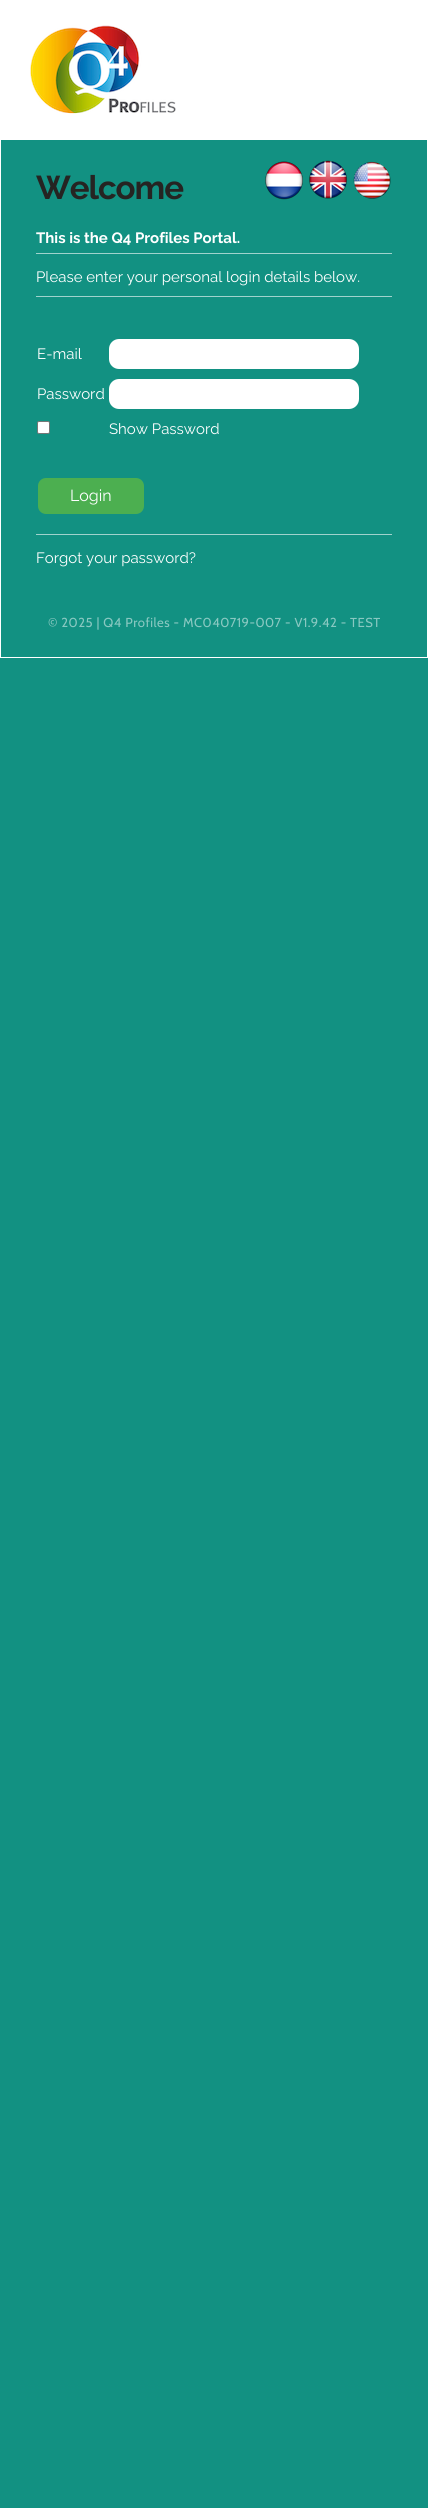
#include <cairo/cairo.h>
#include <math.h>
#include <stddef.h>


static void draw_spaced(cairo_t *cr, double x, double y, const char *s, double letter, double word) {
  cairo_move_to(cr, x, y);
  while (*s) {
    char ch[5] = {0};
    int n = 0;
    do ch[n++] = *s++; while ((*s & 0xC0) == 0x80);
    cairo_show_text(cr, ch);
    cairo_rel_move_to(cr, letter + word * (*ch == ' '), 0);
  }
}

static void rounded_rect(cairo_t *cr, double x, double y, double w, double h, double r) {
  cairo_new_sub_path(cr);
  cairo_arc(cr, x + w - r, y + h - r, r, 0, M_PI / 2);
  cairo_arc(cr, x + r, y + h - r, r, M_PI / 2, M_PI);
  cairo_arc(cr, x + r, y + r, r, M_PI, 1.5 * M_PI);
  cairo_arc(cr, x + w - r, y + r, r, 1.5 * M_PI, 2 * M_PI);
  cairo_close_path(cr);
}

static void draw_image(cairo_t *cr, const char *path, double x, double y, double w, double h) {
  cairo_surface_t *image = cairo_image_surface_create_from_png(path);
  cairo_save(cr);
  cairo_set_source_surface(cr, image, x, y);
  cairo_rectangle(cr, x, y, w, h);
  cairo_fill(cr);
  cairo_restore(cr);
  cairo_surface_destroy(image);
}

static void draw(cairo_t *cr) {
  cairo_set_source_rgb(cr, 18 / 255.0, 145 / 255.0, 130 / 255.0);
  cairo_paint(cr);
  cairo_set_source_rgb(cr, 1, 1, 1);
  cairo_rectangle(cr, 0, 0, 428, 658);
  cairo_fill(cr);
  draw_image(cr, "images/1.png", 30, 25, 146, 89);
  cairo_set_source_rgb(cr, 18 / 255.0, 145 / 255.0, 130 / 255.0);
  cairo_rectangle(cr, 1, 140, 426, 517);
  cairo_fill(cr);
  draw_image(cr, "images/2.png", 265, 161, 38, 39);
  draw_image(cr, "images/3.png", 309, 160, 38, 39);
  draw_image(cr, "images/4.png", 353, 161, 38, 38);
  cairo_set_source_rgb(cr, 160 / 255.0, 211 / 255.0, 205 / 255.0);
  cairo_rectangle(cr, 36, 253, 356, 1);
  cairo_fill(cr);
  cairo_rectangle(cr, 36, 296, 356, 1);
  cairo_fill(cr);
  cairo_set_source_rgb(cr, 1, 1, 1);
  rounded_rect(cr, 109, 339, 250, 30, 10);
  cairo_fill(cr);
  rounded_rect(cr, 109, 379, 250, 30, 10);
  cairo_fill(cr);
  rounded_rect(cr, 37.5, 421.5, 12, 12, 1.5);
  cairo_fill_preserve(cr);
  cairo_set_source_rgb(cr, 118 / 255.0, 118 / 255.0, 118 / 255.0);
  cairo_set_line_width(cr, 1);
  cairo_stroke(cr);
  cairo_set_source_rgb(cr, 76 / 255.0, 175 / 255.0, 80 / 255.0);
  rounded_rect(cr, 38, 478, 106, 36, 8);
  cairo_fill(cr);
  cairo_set_source_rgb(cr, 160 / 255.0, 211 / 255.0, 205 / 255.0);
  cairo_rectangle(cr, 36, 534, 356, 1);
  cairo_fill(cr);
  cairo_select_font_face(cr, "Raleway", CAIRO_FONT_SLANT_NORMAL, CAIRO_FONT_WEIGHT_BOLD);
  cairo_set_font_size(cr, 33);
  cairo_set_source_rgb(cr, 37 / 255.0, 36 / 255.0, 34 / 255.0);
  draw_spaced(cr, 36, 199, "Welcome", -1, 0);
  cairo_set_font_size(cr, 15);
  cairo_set_source_rgb(cr, 1, 1, 1);
  cairo_move_to(cr, 36, 243);
  cairo_show_text(cr, "This is the Q4 Profiles Portal.");
  cairo_select_font_face(cr, "Raleway", CAIRO_FONT_SLANT_NORMAL, CAIRO_FONT_WEIGHT_NORMAL);
  cairo_move_to(cr, 36, 282);
  cairo_show_text(cr, "Please enter your personal login details below.");
  cairo_move_to(cr, 37, 359);
  cairo_show_text(cr, "E-mail");
  cairo_move_to(cr, 37, 399);
  cairo_show_text(cr, "Password");
  cairo_move_to(cr, 109, 434);
  cairo_show_text(cr, "Show Password");
  cairo_set_font_size(cr, 16);
  cairo_move_to(cr, 70, 501);
  cairo_show_text(cr, "Login");
  cairo_set_font_size(cr, 15);
  cairo_move_to(cr, 36, 563);
  cairo_show_text(cr, "Forgot your password?");
  cairo_select_font_face(cr, "Cabin", CAIRO_FONT_SLANT_NORMAL, CAIRO_FONT_WEIGHT_NORMAL);
  cairo_set_font_size(cr, 13);
  cairo_set_source_rgb(cr, 137 / 255.0, 200 / 255.0, 193 / 255.0);
  draw_spaced(cr, 48, 627, "© 2025 | Q4 Profiles - MC040719-007 - V1.9.42 - TEST", 0.5, 0);
}

int main(void) {
  cairo_surface_t *surface = cairo_image_surface_create(CAIRO_FORMAT_RGB24, 428, 2508);
  cairo_t *cr = cairo_create(surface);
  cairo_font_options_t *options = cairo_font_options_create();
  cairo_font_options_set_hint_metrics(options, CAIRO_HINT_METRICS_OFF);
  cairo_font_options_set_hint_style(options, CAIRO_HINT_STYLE_NONE);
  cairo_set_font_options(cr, options);
  cairo_set_miter_limit(cr, 4);
  draw(cr);
  cairo_surface_write_to_png(surface, "out.png");
  cairo_font_options_destroy(options);
  cairo_destroy(cr);
  cairo_surface_destroy(surface);
  return 0;
}
